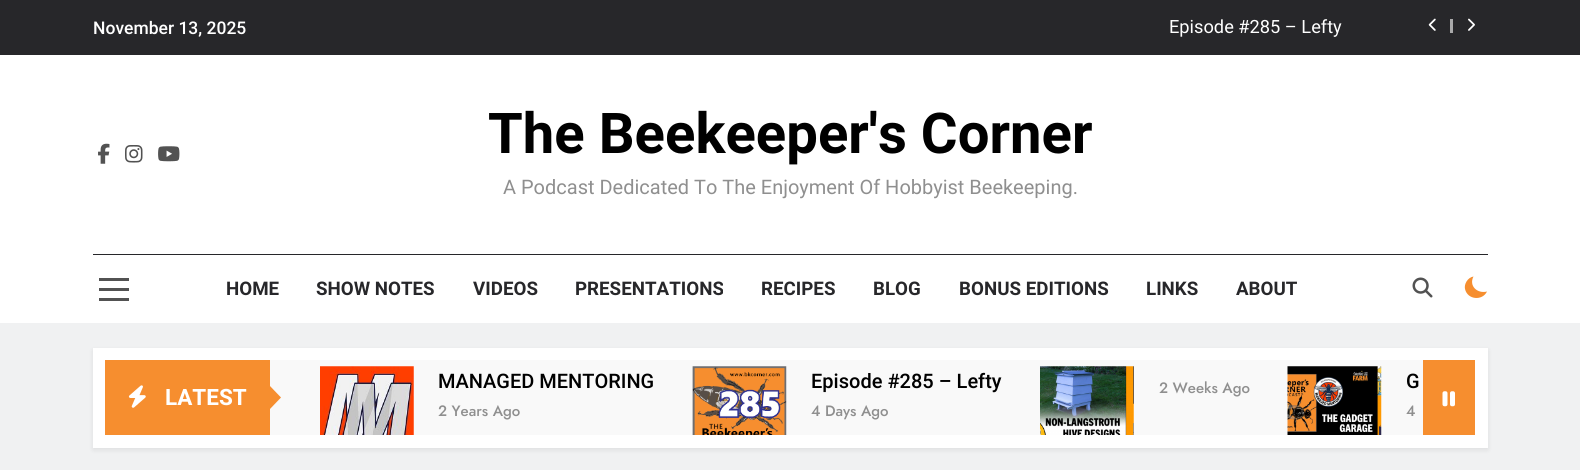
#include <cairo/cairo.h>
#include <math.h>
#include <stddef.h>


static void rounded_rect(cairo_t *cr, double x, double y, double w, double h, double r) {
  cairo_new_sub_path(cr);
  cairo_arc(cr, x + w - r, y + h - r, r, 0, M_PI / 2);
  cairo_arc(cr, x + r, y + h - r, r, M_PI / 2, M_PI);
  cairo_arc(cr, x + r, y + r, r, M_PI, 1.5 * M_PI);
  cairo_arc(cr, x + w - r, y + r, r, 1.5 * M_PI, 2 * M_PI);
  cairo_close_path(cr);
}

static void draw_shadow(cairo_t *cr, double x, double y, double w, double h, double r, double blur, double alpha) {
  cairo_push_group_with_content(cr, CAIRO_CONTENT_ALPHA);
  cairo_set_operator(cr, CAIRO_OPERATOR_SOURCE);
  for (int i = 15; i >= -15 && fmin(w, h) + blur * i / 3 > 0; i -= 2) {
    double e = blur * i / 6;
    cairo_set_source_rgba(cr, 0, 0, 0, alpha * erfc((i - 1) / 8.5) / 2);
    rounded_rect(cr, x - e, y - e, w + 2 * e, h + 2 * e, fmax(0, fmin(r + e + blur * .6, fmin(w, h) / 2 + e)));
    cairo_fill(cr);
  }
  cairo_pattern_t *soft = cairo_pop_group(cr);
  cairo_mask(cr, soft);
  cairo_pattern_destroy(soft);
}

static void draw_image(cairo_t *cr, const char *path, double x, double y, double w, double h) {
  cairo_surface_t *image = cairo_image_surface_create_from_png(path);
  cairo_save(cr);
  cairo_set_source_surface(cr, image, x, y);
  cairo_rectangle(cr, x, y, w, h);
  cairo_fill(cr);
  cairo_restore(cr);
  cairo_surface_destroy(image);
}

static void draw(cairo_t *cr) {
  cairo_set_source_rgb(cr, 240 / 255.0, 241 / 255.0, 242 / 255.0);
  cairo_paint(cr);
  cairo_set_source_rgb(cr, 39 / 255.0, 39 / 255.0, 42 / 255.0);
  cairo_rectangle(cr, 0, 0, 1580, 55);
  cairo_fill(cr);
  draw_image(cr, "images/1.png", 1428, 18, 8, 13);
  cairo_set_source_rgb(cr, 169 / 255.0, 169 / 255.0, 170 / 255.0);
  cairo_rectangle(cr, 1450, 19, 3, 14);
  cairo_fill(cr);
  draw_image(cr, "images/2.png", 1468, 18, 7, 13);
  cairo_set_source_rgb(cr, 1, 1, 1);
  cairo_rectangle(cr, 0, 55, 1580, 268);
  cairo_fill(cr);
  draw_image(cr, "images/3.png", 98, 143, 12, 21);
  draw_image(cr, "images/4.png", 125, 145, 18, 18);
  draw_image(cr, "images/5.png", 158, 146, 22, 16);
  cairo_set_source_rgb(cr, 39 / 255.0, 39 / 255.0, 42 / 255.0);
  cairo_rectangle(cr, 93, 254, 1395, 1);
  cairo_fill(cr);
  cairo_set_source_rgb(cr, 82 / 255.0, 82 / 255.0, 82 / 255.0);
  cairo_rectangle(cr, 99, 278, 30, 3);
  cairo_fill(cr);
  cairo_rectangle(cr, 99, 288, 30, 3);
  cairo_fill(cr);
  cairo_rectangle(cr, 99, 298, 30, 3);
  cairo_fill(cr);
  draw_image(cr, "images/6.png", 1412, 277, 21, 21);
  cairo_set_source_rgb(cr, 246 / 255.0, 142 / 255.0, 47 / 255.0);
  cairo_new_path(cr);
  cairo_move_to(cr, 1487, 291.5);
  cairo_curve_to(cr, 1477.5, 294, 1468.5, 286, 1473.5, 276.5);
  cairo_curve_to(cr, 1470.5, 277, 1468, 279, 1466.5, 281.5);
  cairo_curve_to(cr, 1465, 284, 1464.5, 286.5, 1465, 289);
  cairo_curve_to(cr, 1467.5, 300, 1482.5, 301, 1487, 291.5);
  cairo_close_path(cr);
  cairo_fill(cr);
  cairo_set_source_rgb(cr, 0, 0, 0);
  draw_shadow(cr, 93, 350, 1395, 100, 0, 2.5, 0.08);
  cairo_set_source_rgb(cr, 1, 1, 1);
  cairo_rectangle(cr, 93, 348, 1395, 100);
  cairo_fill(cr);
  cairo_set_source_rgb(cr, 246 / 255.0, 142 / 255.0, 47 / 255.0);
  cairo_rectangle(cr, 105, 360, 165, 75);
  cairo_fill(cr);
  draw_image(cr, "images/7.png", 128, 385, 18, 23);
  cairo_set_source_rgb(cr, 249 / 255.0, 249 / 255.0, 249 / 255.0);
  cairo_rectangle(cr, 270, 360, 1153, 75);
  cairo_fill(cr);
  cairo_set_source_rgb(cr, 246 / 255.0, 142 / 255.0, 47 / 255.0);
  cairo_new_path(cr);
  cairo_move_to(cr, 269, 410);
  cairo_line_to(cr, 269, 385);
  cairo_line_to(cr, 281, 397.5);
  cairo_close_path(cr);
  cairo_fill(cr);
  draw_image(cr, "images/8.png", 320, 366, 94, 69);
  draw_image(cr, "images/9.png", 692, 366, 95, 69);
  draw_image(cr, "images/10.png", 1040, 366, 94, 69);
  draw_image(cr, "images/11.png", 1287, 366, 95, 69);
  cairo_rectangle(cr, 1423, 360, 52, 75);
  cairo_fill(cr);
  draw_image(cr, "images/12.png", 1442, 391, 13, 16);
  cairo_select_font_face(cr, "Roboto Medium", CAIRO_FONT_SLANT_NORMAL, CAIRO_FONT_WEIGHT_NORMAL);
  cairo_set_font_size(cr, 17.5);
  cairo_set_source_rgb(cr, 1, 1, 1);
  cairo_move_to(cr, 93, 34);
  cairo_show_text(cr, "November 13, 2025");
  cairo_select_font_face(cr, "Roboto", CAIRO_FONT_SLANT_NORMAL, CAIRO_FONT_WEIGHT_NORMAL);
  cairo_set_font_size(cr, 18.25);
  cairo_move_to(cr, 1169, 33);
  cairo_show_text(cr, "Episode #285 – Lefty");
  cairo_select_font_face(cr, "Roboto", CAIRO_FONT_SLANT_NORMAL, CAIRO_FONT_WEIGHT_BOLD);
  cairo_set_font_size(cr, 56.25);
  cairo_set_source_rgb(cr, 0, 0, 0);
  cairo_move_to(cr, 488, 153);
  cairo_show_text(cr, "The Beekeeper's Corner");
  cairo_select_font_face(cr, "Roboto", CAIRO_FONT_SLANT_NORMAL, CAIRO_FONT_WEIGHT_NORMAL);
  cairo_set_font_size(cr, 20);
  cairo_set_source_rgb(cr, 143 / 255.0, 143 / 255.0, 143 / 255.0);
  cairo_move_to(cr, 503, 194);
  cairo_show_text(cr, "A Podcast Dedicated To The Enjoyment Of Hobbyist Beekeeping.");
  cairo_select_font_face(cr, "Roboto", CAIRO_FONT_SLANT_NORMAL, CAIRO_FONT_WEIGHT_BOLD);
  cairo_set_font_size(cr, 18.75);
  cairo_set_source_rgb(cr, 39 / 255.0, 39 / 255.0, 42 / 255.0);
  cairo_move_to(cr, 226, 295);
  cairo_show_text(cr, "HOME");
  cairo_move_to(cr, 316, 295);
  cairo_show_text(cr, "SHOW NOTES");
  cairo_move_to(cr, 473, 295);
  cairo_show_text(cr, "VIDEOS");
  cairo_move_to(cr, 575, 295);
  cairo_show_text(cr, "PRESENTATIONS");
  cairo_move_to(cr, 761, 295);
  cairo_show_text(cr, "RECIPES");
  cairo_move_to(cr, 873, 295);
  cairo_show_text(cr, "BLOG");
  cairo_move_to(cr, 959, 295);
  cairo_show_text(cr, "BONUS EDITIONS");
  cairo_move_to(cr, 1146, 295);
  cairo_show_text(cr, "LINKS");
  cairo_move_to(cr, 1236, 295);
  cairo_show_text(cr, "ABOUT");
  cairo_set_font_size(cr, 22.5);
  cairo_set_source_rgb(cr, 1, 1, 1);
  cairo_move_to(cr, 165, 405);
  cairo_show_text(cr, "LATEST");
  cairo_select_font_face(cr, "Roboto Medium", CAIRO_FONT_SLANT_NORMAL, CAIRO_FONT_WEIGHT_NORMAL);
  cairo_set_font_size(cr, 20);
  cairo_set_source_rgb(cr, 0, 0, 0);
  cairo_move_to(cr, 438, 388);
  cairo_show_text(cr, "MANAGED MENTORING");
  cairo_select_font_face(cr, "Jost Medium", CAIRO_FONT_SLANT_NORMAL, CAIRO_FONT_WEIGHT_NORMAL);
  cairo_set_font_size(cr, 15);
  cairo_set_source_rgb(cr, 143 / 255.0, 143 / 255.0, 143 / 255.0);
  cairo_move_to(cr, 438, 416);
  cairo_show_text(cr, "2 Years Ago");
  cairo_select_font_face(cr, "Roboto Medium", CAIRO_FONT_SLANT_NORMAL, CAIRO_FONT_WEIGHT_NORMAL);
  cairo_set_font_size(cr, 20);
  cairo_set_source_rgb(cr, 0, 0, 0);
  cairo_move_to(cr, 811, 388);
  cairo_show_text(cr, "Episode #285 – Lefty");
  cairo_select_font_face(cr, "Jost Medium", CAIRO_FONT_SLANT_NORMAL, CAIRO_FONT_WEIGHT_NORMAL);
  cairo_set_font_size(cr, 15);
  cairo_set_source_rgb(cr, 143 / 255.0, 143 / 255.0, 143 / 255.0);
  cairo_move_to(cr, 811, 416);
  cairo_show_text(cr, "4 Days Ago");
  cairo_move_to(cr, 1159, 393);
  cairo_show_text(cr, "2 Weeks Ago");
  cairo_select_font_face(cr, "Roboto Medium", CAIRO_FONT_SLANT_NORMAL, CAIRO_FONT_WEIGHT_NORMAL);
  cairo_set_font_size(cr, 20);
  cairo_set_source_rgb(cr, 0, 0, 0);
  cairo_move_to(cr, 1406, 388);
  cairo_show_text(cr, "G");
  cairo_select_font_face(cr, "Jost Medium", CAIRO_FONT_SLANT_NORMAL, CAIRO_FONT_WEIGHT_NORMAL);
  cairo_set_font_size(cr, 15);
  cairo_set_source_rgb(cr, 143 / 255.0, 143 / 255.0, 143 / 255.0);
  cairo_move_to(cr, 1406, 416);
  cairo_show_text(cr, "4");
}

int main(void) {
  cairo_surface_t *surface = cairo_image_surface_create(CAIRO_FORMAT_RGB24, 1580, 470);
  cairo_t *cr = cairo_create(surface);
  cairo_font_options_t *options = cairo_font_options_create();
  cairo_font_options_set_hint_metrics(options, CAIRO_HINT_METRICS_OFF);
  cairo_font_options_set_hint_style(options, CAIRO_HINT_STYLE_NONE);
  cairo_set_font_options(cr, options);
  cairo_set_miter_limit(cr, 4);
  draw(cr);
  cairo_surface_write_to_png(surface, "out.png");
  cairo_font_options_destroy(options);
  cairo_destroy(cr);
  cairo_surface_destroy(surface);
  return 0;
}
